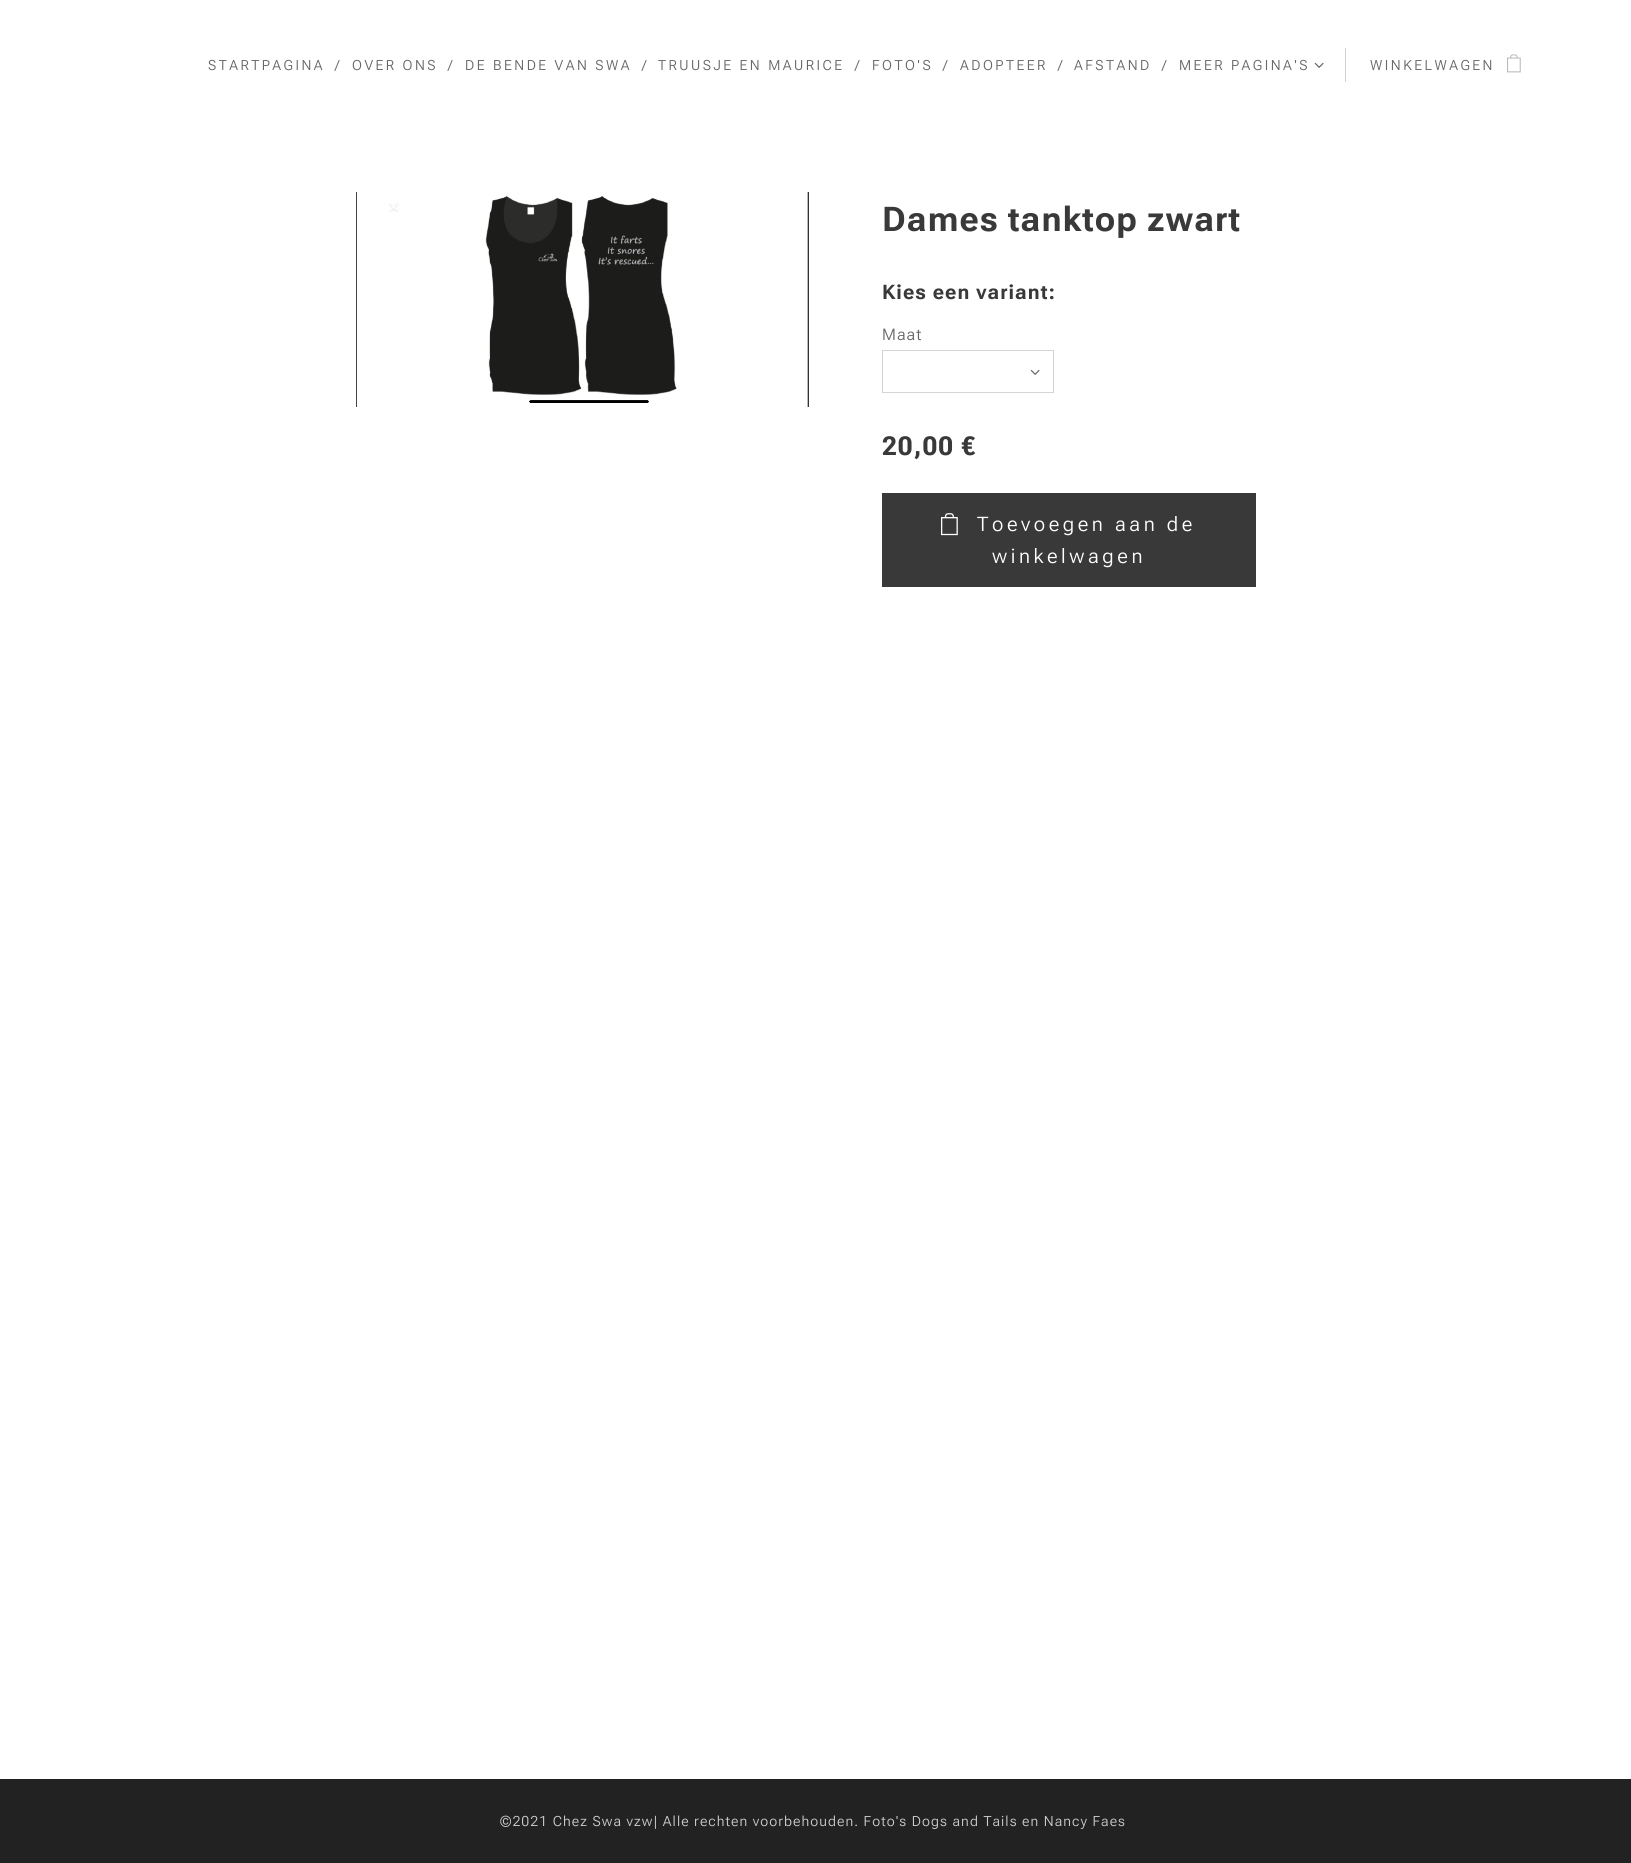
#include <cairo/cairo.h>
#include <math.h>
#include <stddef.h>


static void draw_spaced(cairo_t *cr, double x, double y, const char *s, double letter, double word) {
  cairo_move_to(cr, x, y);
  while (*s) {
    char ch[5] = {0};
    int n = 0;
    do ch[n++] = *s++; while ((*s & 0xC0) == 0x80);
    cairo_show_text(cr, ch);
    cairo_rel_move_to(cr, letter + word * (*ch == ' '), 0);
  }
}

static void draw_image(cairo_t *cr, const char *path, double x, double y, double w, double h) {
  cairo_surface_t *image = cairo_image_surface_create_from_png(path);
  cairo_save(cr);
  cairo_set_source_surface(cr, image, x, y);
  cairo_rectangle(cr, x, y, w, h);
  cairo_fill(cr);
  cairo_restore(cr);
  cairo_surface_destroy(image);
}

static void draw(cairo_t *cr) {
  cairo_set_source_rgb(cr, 1, 1, 1);
  cairo_paint(cr);
  draw_image(cr, "images/1.png", 1314, 62, 10, 6);
  cairo_set_source_rgb(cr, 209 / 255.0, 209 / 255.0, 209 / 255.0);
  cairo_rectangle(cr, 1345, 48, 1, 34);
  cairo_fill(cr);
  draw_image(cr, "images/2.png", 1507, 54, 14, 19);
  draw_image(cr, "images/3.png", 356, 192, 453, 215);
  cairo_rectangle(cr, 882.5, 350.5, 171, 42);
  cairo_set_source_rgb(cr, 212 / 255.0, 212 / 255.0, 212 / 255.0);
  cairo_set_line_width(cr, 1);
  cairo_stroke(cr);
  draw_image(cr, "images/1.png", 1030, 369, 10, 6);
  cairo_set_source_rgb(cr, 57 / 255.0, 57 / 255.0, 57 / 255.0);
  cairo_rectangle(cr, 882, 493, 374, 94);
  cairo_fill(cr);
  draw_image(cr, "images/4.png", 941, 513, 17, 23);
  cairo_set_source_rgb(cr, 34 / 255.0, 34 / 255.0, 34 / 255.0);
  cairo_rectangle(cr, 0, 1779, 1631, 84);
  cairo_fill(cr);
  cairo_select_font_face(cr, "Roboto Flex Light", CAIRO_FONT_SLANT_NORMAL, CAIRO_FONT_WEIGHT_NORMAL);
  cairo_set_font_size(cr, 14);
  cairo_set_source_rgb(cr, 102 / 255.0, 102 / 255.0, 102 / 255.0);
  draw_spaced(cr, 208, 70, "STARTPAGINA", 2.5, 0);
  draw_spaced(cr, 335, 70, "/", 2.5, 0);
  draw_spaced(cr, 352, 70, "OVER ONS", 2.5, 0);
  draw_spaced(cr, 448, 70, "/", 2.5, 0);
  draw_spaced(cr, 465, 70, "DE BENDE VAN SWA", 2.5, 0);
  draw_spaced(cr, 642, 70, "/", 2.5, 0);
  draw_spaced(cr, 658, 70, "TRUUSJE EN MAURICE", 2.5, 0);
  draw_spaced(cr, 855, 70, "/", 2.5, 0);
  draw_spaced(cr, 872, 70, "FOTO'S", 2.5, 0);
  draw_spaced(cr, 943, 70, "/", 2.5, 0);
  draw_spaced(cr, 960, 70, "ADOPTEER", 2.5, 0);
  draw_spaced(cr, 1058, 70, "/", 2.5, 0);
  draw_spaced(cr, 1074, 70, "AFSTAND", 2.5, 0);
  draw_spaced(cr, 1162, 70, "/", 2.5, 0);
  draw_spaced(cr, 1179, 70, "MEER PAGINA'S", 2.5, 0);
  draw_spaced(cr, 1370, 70, "WINKELWAGEN", 2.5, 0);
  cairo_select_font_face(cr, "Roboto Flex", CAIRO_FONT_SLANT_NORMAL, CAIRO_FONT_WEIGHT_BOLD);
  cairo_set_font_size(cr, 34);
  cairo_set_source_rgb(cr, 57 / 255.0, 57 / 255.0, 57 / 255.0);
  draw_spaced(cr, 882, 231, "Dames tanktop zwart", 1.07, 0);
  cairo_set_font_size(cr, 20);
  draw_spaced(cr, 882, 299, "Kies een variant:", 1.07, 0);
  cairo_select_font_face(cr, "Roboto Flex Light", CAIRO_FONT_SLANT_NORMAL, CAIRO_FONT_WEIGHT_NORMAL);
  cairo_set_font_size(cr, 16);
  cairo_set_source_rgb(cr, 102 / 255.0, 102 / 255.0, 102 / 255.0);
  draw_spaced(cr, 882, 340, "Maat", 1.07, 0);
  cairo_select_font_face(cr, "Roboto Flex", CAIRO_FONT_SLANT_NORMAL, CAIRO_FONT_WEIGHT_BOLD);
  cairo_set_font_size(cr, 26);
  cairo_set_source_rgb(cr, 57 / 255.0, 57 / 255.0, 57 / 255.0);
  draw_spaced(cr, 882, 455, "20,00 €", 1.07, 0);
  cairo_select_font_face(cr, "Roboto Flex Light", CAIRO_FONT_SLANT_NORMAL, CAIRO_FONT_WEIGHT_NORMAL);
  cairo_set_font_size(cr, 20);
  cairo_set_source_rgb(cr, 1, 1, 1);
  draw_spaced(cr, 977, 531, "Toevoegen aan de", 3.6, 0);
  draw_spaced(cr, 992, 563, "winkelwagen", 3.6, 0);
  cairo_set_font_size(cr, 14);
  cairo_set_source_rgb(cr, 204 / 255.0, 204 / 255.0, 204 / 255.0);
  draw_spaced(cr, 500, 1826, "©2021 Chez Swa vzw| Alle rechten voorbehouden. Foto's Dogs and Tails en Nancy Faes", 1.07, 0);
}

int main(void) {
  cairo_surface_t *surface = cairo_image_surface_create(CAIRO_FORMAT_RGB24, 1631, 1863);
  cairo_t *cr = cairo_create(surface);
  cairo_font_options_t *options = cairo_font_options_create();
  cairo_font_options_set_hint_metrics(options, CAIRO_HINT_METRICS_OFF);
  cairo_font_options_set_hint_style(options, CAIRO_HINT_STYLE_NONE);
  cairo_set_font_options(cr, options);
  cairo_set_miter_limit(cr, 4);
  draw(cr);
  cairo_surface_write_to_png(surface, "out.png");
  cairo_font_options_destroy(options);
  cairo_destroy(cr);
  cairo_surface_destroy(surface);
  return 0;
}
